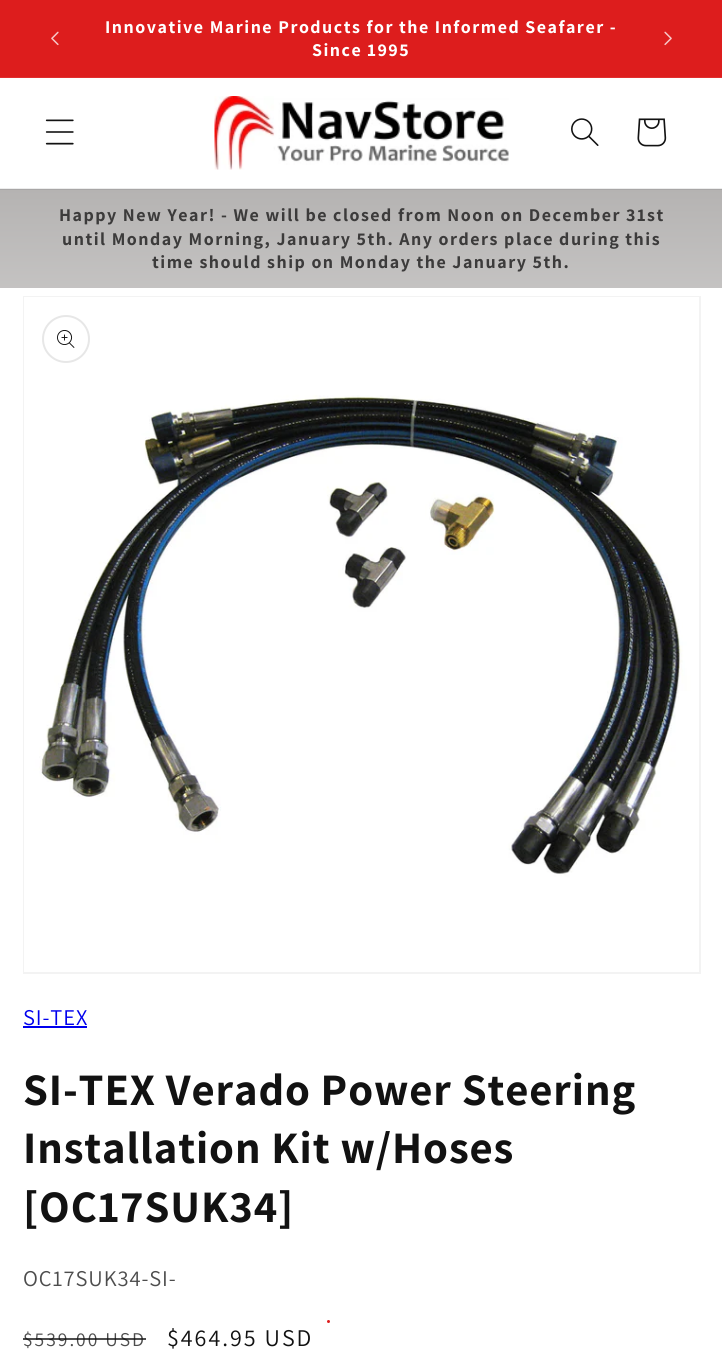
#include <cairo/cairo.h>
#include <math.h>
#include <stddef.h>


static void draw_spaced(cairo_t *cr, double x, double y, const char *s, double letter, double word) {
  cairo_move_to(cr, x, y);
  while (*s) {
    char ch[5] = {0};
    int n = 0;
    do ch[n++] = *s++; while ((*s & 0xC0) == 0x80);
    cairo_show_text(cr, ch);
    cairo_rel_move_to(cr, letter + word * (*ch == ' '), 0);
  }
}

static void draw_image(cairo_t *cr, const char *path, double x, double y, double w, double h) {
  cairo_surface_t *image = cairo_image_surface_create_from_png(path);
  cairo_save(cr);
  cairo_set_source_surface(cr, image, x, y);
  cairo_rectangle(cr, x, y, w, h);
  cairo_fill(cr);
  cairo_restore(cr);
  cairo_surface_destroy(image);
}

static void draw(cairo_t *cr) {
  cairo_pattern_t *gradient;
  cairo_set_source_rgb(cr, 1, 1, 1);
  cairo_paint(cr);
  cairo_set_source_rgb(cr, 236 / 255.0, 236 / 255.0, 236 / 255.0);
  cairo_rectangle(cr, 0, 188, 722, 1);
  cairo_fill(cr);
  cairo_set_source_rgb(cr, 221 / 255.0, 29 / 255.0, 29 / 255.0);
  cairo_rectangle(cr, 0, 0, 722, 77);
  cairo_fill(cr);
  cairo_set_source_rgb(cr, 224 / 255.0, 47 / 255.0, 47 / 255.0);
  cairo_rectangle(cr, 0, 77, 722, 1);
  cairo_fill(cr);
  draw_image(cr, "images/1.png", 51, 31, 8, 15);
  draw_image(cr, "images/2.png", 664, 31, 8, 15);
  draw_image(cr, "images/3.png", 45, 119, 29, 26);
  draw_image(cr, "images/4.png", 214, 96, 295, 74);
  draw_image(cr, "images/5.png", 571, 118, 28, 28);
  draw_image(cr, "images/6.png", 637, 118, 30, 29);
  gradient = cairo_pattern_create_linear(361, 0, 362, 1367);
  cairo_pattern_add_color_stop_rgba(gradient, 0, 177 / 255.0, 175 / 255.0, 174 / 255.0, 1);
  cairo_pattern_add_color_stop_rgba(gradient, 0.12, 177 / 255.0, 175 / 255.0, 174 / 255.0, 1);
  cairo_pattern_add_color_stop_rgba(gradient, 0.49, 1, 1, 1, 1);
  cairo_pattern_add_color_stop_rgba(gradient, 1, 1, 1, 1, 1);
  cairo_set_source(cr, gradient);
  cairo_pattern_destroy(gradient);
  cairo_rectangle(cr, 0, 190, 722, 98);
  cairo_fill(cr);
  gradient = cairo_pattern_create_linear(361, 0, 362, 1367);
  cairo_pattern_add_color_stop_rgba(gradient, 0, 164 / 255.0, 162 / 255.0, 162 / 255.0, 1);
  cairo_pattern_add_color_stop_rgba(gradient, 0.12, 164 / 255.0, 162 / 255.0, 162 / 255.0, 1);
  cairo_pattern_add_color_stop_rgba(gradient, 0.49, 236 / 255.0, 236 / 255.0, 236 / 255.0, 1);
  cairo_pattern_add_color_stop_rgba(gradient, 1, 236 / 255.0, 236 / 255.0, 236 / 255.0, 1);
  cairo_set_source(cr, gradient);
  cairo_pattern_destroy(gradient);
  cairo_rectangle(cr, 0, 189, 722, 1);
  cairo_fill(cr);
  cairo_rectangle(cr, 24, 297, 676, 676);
  cairo_set_source_rgb(cr, 243 / 255.0, 243 / 255.0, 243 / 255.0);
  cairo_stroke(cr);
  draw_image(cr, "images/7.png", 24, 297, 675, 675);
  cairo_arc(cr, 66, 339, 23, 0, 2 * M_PI);
  cairo_set_source_rgb(cr, 231 / 255.0, 231 / 255.0, 231 / 255.0);
  cairo_stroke(cr);
  draw_image(cr, "images/8.png", 57, 330, 18, 18);
  cairo_set_source_rgb(cr, 0, 0, 238 / 255.0);
  cairo_rectangle(cr, 23, 1026, 64, 2);
  cairo_fill(cr);
  cairo_set_source_rgb(cr, 221 / 255.0, 29 / 255.0, 29 / 255.0);
  cairo_arc(cr, 328.5, 1321.5, 1.5, 0, 2 * M_PI);
  cairo_fill(cr);
  cairo_select_font_face(cr, "Assistant", CAIRO_FONT_SLANT_NORMAL, CAIRO_FONT_WEIGHT_BOLD);
  cairo_set_font_size(cr, 18);
  cairo_set_source_rgb(cr, 1, 1, 1);
  draw_spaced(cr, 105, 33, "Innovative Marine Products for the Informed Seafarer -", 1.5, 0);
  draw_spaced(cr, 312, 56, "Since 1995", 1.5, 0);
  cairo_set_source_rgb(cr, 60 / 255.0, 59 / 255.0, 59 / 255.0);
  draw_spaced(cr, 59, 221, "Happy New Year! - We will be closed from Noon on December 31st", 1.5, 0);
  draw_spaced(cr, 62, 245, "until Monday Morning, January 5th. Any orders place during this", 1.5, 0);
  draw_spaced(cr, 152, 268, "time should ship on Monday the January 5th.", 1.5, 0);
  cairo_select_font_face(cr, "Assistant", CAIRO_FONT_SLANT_NORMAL, CAIRO_FONT_WEIGHT_NORMAL);
  cairo_set_font_size(cr, 22.5);
  cairo_set_source_rgb(cr, 0, 0, 238 / 255.0);
  draw_spaced(cr, 23, 1025, "SI-TEX", 0.9, 0);
  cairo_select_font_face(cr, "Assistant", CAIRO_FONT_SLANT_NORMAL, CAIRO_FONT_WEIGHT_BOLD);
  cairo_set_font_size(cr, 45);
  cairo_set_source_rgb(cr, 18 / 255.0, 18 / 255.0, 18 / 255.0);
  draw_spaced(cr, 23, 1105, "SI-TEX Verado Power Steering", 0.9, 0);
  draw_spaced(cr, 23, 1163, "Installation Kit w/Hoses", 0.9, 0);
  draw_spaced(cr, 23, 1222, "[OC17SUK34]", 0.9, 0);
  cairo_select_font_face(cr, "Assistant", CAIRO_FONT_SLANT_NORMAL, CAIRO_FONT_WEIGHT_NORMAL);
  cairo_set_font_size(cr, 22.5);
  cairo_set_source_rgb(cr, 77 / 255.0, 77 / 255.0, 77 / 255.0);
  draw_spaced(cr, 23, 1286, "OC17SUK34-SI-", 0.9, 0);
  cairo_set_font_size(cr, 19.5);
  draw_spaced(cr, 23, 1346, "$539.00 USD", 2, 0);
  cairo_set_source_rgba(cr, 18 / 255.0, 18 / 255.0, 18 / 255.0, 0.75);
  cairo_rectangle(cr, 23, 1338, 123, 2);
  cairo_fill(cr);
  cairo_set_font_size(cr, 24);
  cairo_set_source_rgb(cr, 18 / 255.0, 18 / 255.0, 18 / 255.0);
  draw_spaced(cr, 167, 1346, "$464.95 USD", 2, 0);
}

int main(void) {
  cairo_surface_t *surface = cairo_image_surface_create(CAIRO_FORMAT_RGB24, 722, 1366);
  cairo_t *cr = cairo_create(surface);
  cairo_font_options_t *options = cairo_font_options_create();
  cairo_font_options_set_hint_metrics(options, CAIRO_HINT_METRICS_OFF);
  cairo_font_options_set_hint_style(options, CAIRO_HINT_STYLE_NONE);
  cairo_set_font_options(cr, options);
  cairo_set_miter_limit(cr, 4);
  draw(cr);
  cairo_surface_write_to_png(surface, "out.png");
  cairo_font_options_destroy(options);
  cairo_destroy(cr);
  cairo_surface_destroy(surface);
  return 0;
}
